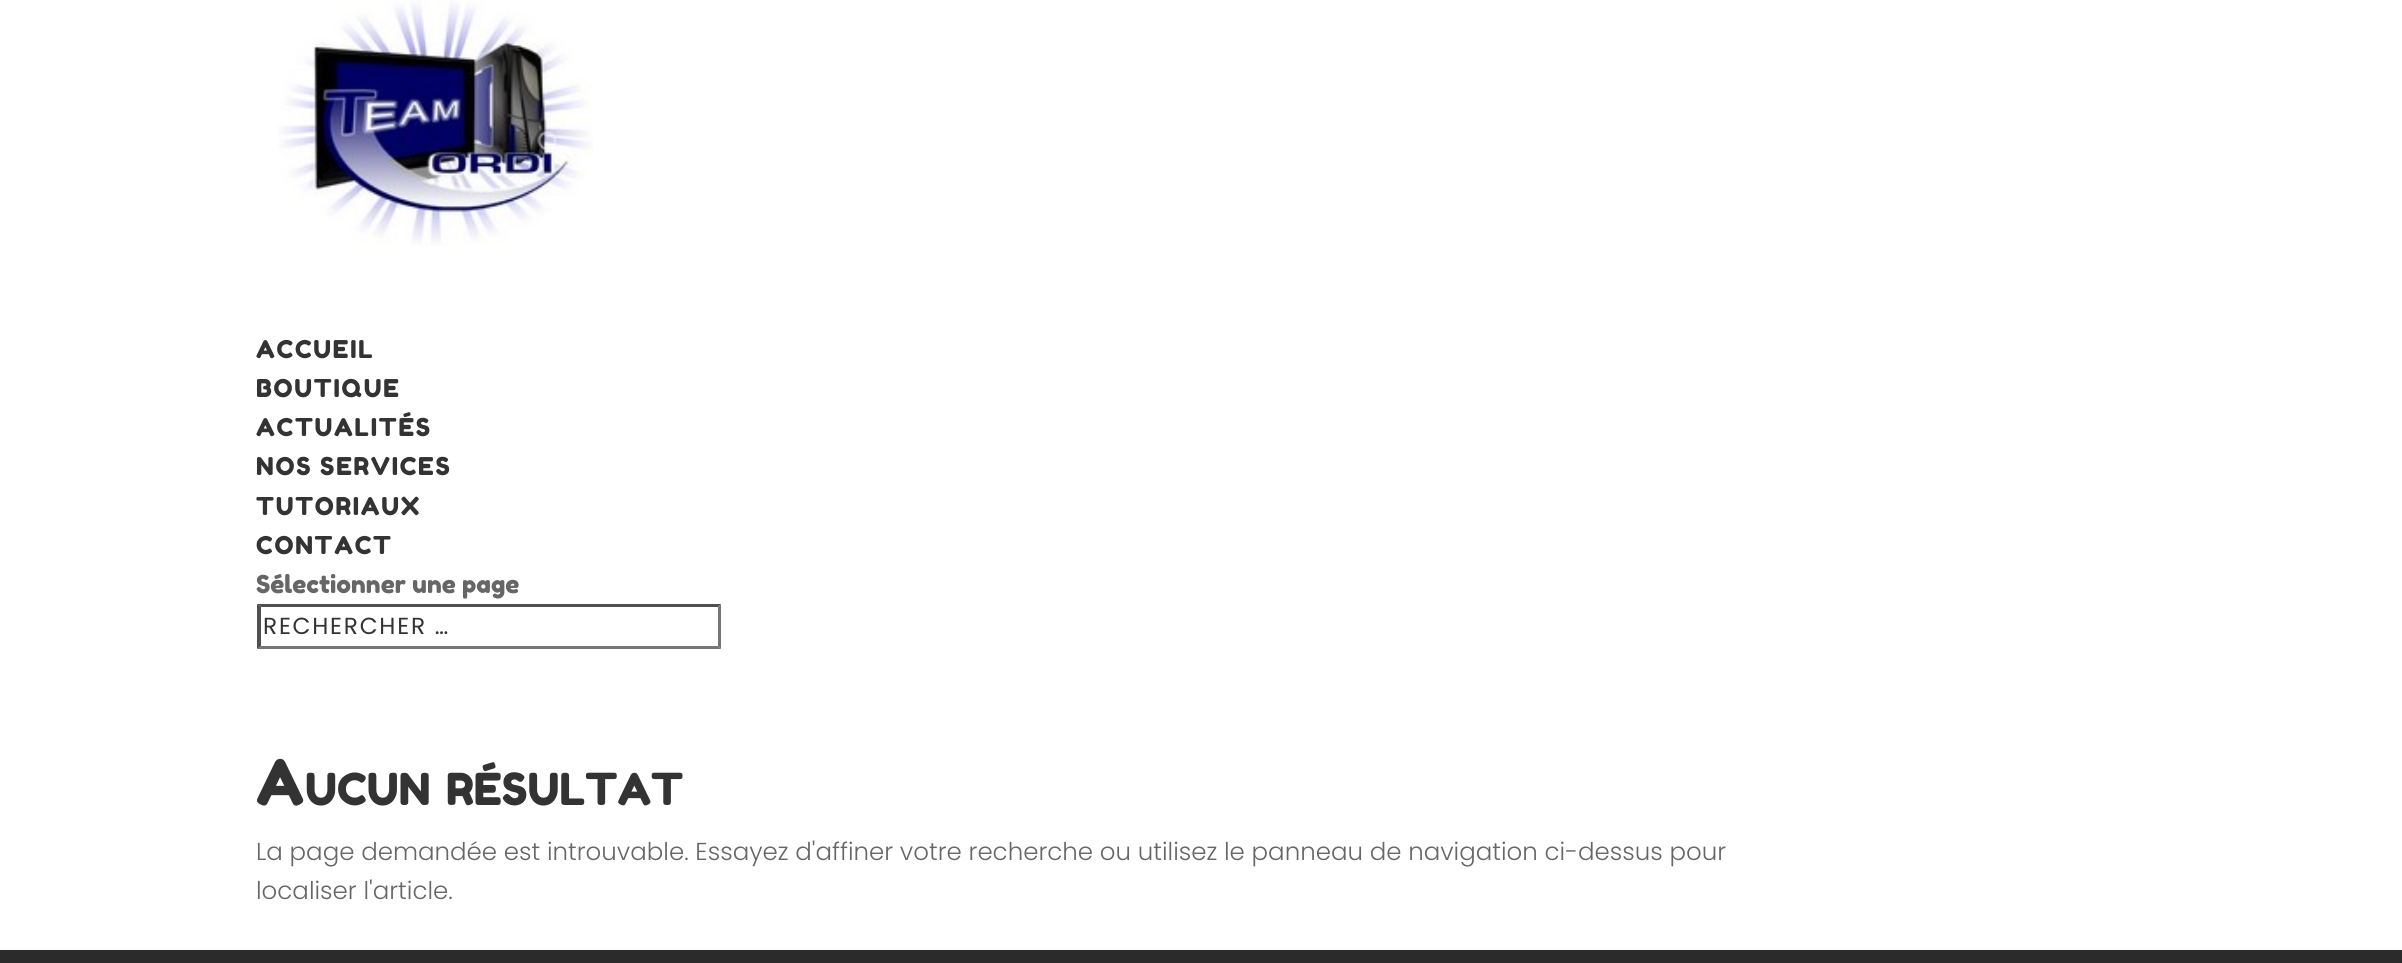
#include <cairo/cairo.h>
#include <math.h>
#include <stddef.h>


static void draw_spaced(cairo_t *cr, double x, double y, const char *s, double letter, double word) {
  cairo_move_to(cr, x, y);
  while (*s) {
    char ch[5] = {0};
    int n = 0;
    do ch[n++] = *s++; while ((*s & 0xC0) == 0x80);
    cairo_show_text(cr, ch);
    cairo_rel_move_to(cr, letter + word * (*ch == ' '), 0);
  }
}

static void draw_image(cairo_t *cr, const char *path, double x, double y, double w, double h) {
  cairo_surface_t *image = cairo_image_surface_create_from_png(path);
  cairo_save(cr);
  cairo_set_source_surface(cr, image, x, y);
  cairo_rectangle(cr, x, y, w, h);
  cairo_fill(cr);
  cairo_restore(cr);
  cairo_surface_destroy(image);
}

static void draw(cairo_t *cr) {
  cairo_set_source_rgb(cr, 1, 1, 1);
  cairo_paint(cr);
  draw_image(cr, "images/1.png", 278, 0, 315, 246);
  cairo_set_source_rgb(cr, 79 / 255.0, 79 / 255.0, 79 / 255.0);
  cairo_new_path(cr);
  cairo_move_to(cr, 257, 604);
  cairo_line_to(cr, 721, 604);
  cairo_line_to(cr, 718, 607);
  cairo_line_to(cr, 261, 607);
  cairo_close_path(cr);
  cairo_fill(cr);
  cairo_set_source_rgb(cr, 118 / 255.0, 118 / 255.0, 118 / 255.0);
  cairo_new_path(cr);
  cairo_move_to(cr, 721, 604);
  cairo_line_to(cr, 721, 649);
  cairo_line_to(cr, 718, 646);
  cairo_line_to(cr, 718, 607);
  cairo_close_path(cr);
  cairo_fill(cr);
  cairo_new_path(cr);
  cairo_move_to(cr, 721, 649);
  cairo_line_to(cr, 257, 649);
  cairo_line_to(cr, 261, 646);
  cairo_line_to(cr, 718, 646);
  cairo_close_path(cr);
  cairo_fill(cr);
  cairo_set_source_rgb(cr, 79 / 255.0, 79 / 255.0, 79 / 255.0);
  cairo_new_path(cr);
  cairo_move_to(cr, 257, 649);
  cairo_line_to(cr, 257, 604);
  cairo_line_to(cr, 261, 607);
  cairo_line_to(cr, 261, 646);
  cairo_close_path(cr);
  cairo_fill(cr);
  cairo_set_source_rgb(cr, 43 / 255.0, 43 / 255.0, 43 / 255.0);
  cairo_rectangle(cr, 0, 950, 2402, 13);
  cairo_fill(cr);
  cairo_select_font_face(cr, "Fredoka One", CAIRO_FONT_SLANT_NORMAL, CAIRO_FONT_WEIGHT_NORMAL);
  cairo_set_font_size(cr, 24.5);
  cairo_set_source_rgb(cr, 51 / 255.0, 51 / 255.0, 51 / 255.0);
  draw_spaced(cr, 256, 358, "ACCUEIL", 1.75, 0);
  draw_spaced(cr, 256, 397, "BOUTIQUE", 1.75, 0);
  draw_spaced(cr, 256, 436, "ACTUALITÉS", 1.75, 0);
  draw_spaced(cr, 256, 475, "NOS SERVICES", 1.75, 0);
  draw_spaced(cr, 256, 515, "TUTORIAUX", 1.75, 0);
  draw_spaced(cr, 256, 554, "CONTACT", 1.75, 0);
  cairo_set_source_rgb(cr, 102 / 255.0, 102 / 255.0, 102 / 255.0);
  cairo_move_to(cr, 256, 593);
  cairo_show_text(cr, "Sélectionner une page");
  cairo_select_font_face(cr, "Poppins", CAIRO_FONT_SLANT_NORMAL, CAIRO_FONT_WEIGHT_NORMAL);
  cairo_set_font_size(cr, 23.25);
  cairo_set_source_rgb(cr, 51 / 255.0, 51 / 255.0, 51 / 255.0);
  draw_spaced(cr, 263, 634, "RECHERCHER …", 1.75, 0);
  cairo_select_font_face(cr, "Fredoka One", CAIRO_FONT_SLANT_NORMAL, CAIRO_FONT_WEIGHT_NORMAL);
  cairo_set_font_size(cr, 63);
  cairo_move_to(cr, 256, 805);
  cairo_show_text(cr, "A");
  cairo_set_font_size(cr, 44);
  cairo_move_to(cr, 305, 805);
  cairo_show_text(cr, "UCUN");
  cairo_move_to(cr, 446, 805);
  cairo_show_text(cr, "RÉSULTAT");
  cairo_select_font_face(cr, "Poppins Light", CAIRO_FONT_SLANT_NORMAL, CAIRO_FONT_WEIGHT_NORMAL);
  cairo_set_font_size(cr, 24.5);
  cairo_set_source_rgb(cr, 102 / 255.0, 102 / 255.0, 102 / 255.0);
  cairo_move_to(cr, 256, 860);
  cairo_show_text(cr, "La page demandée est introuvable. Essayez d'affiner votre recherche ou utilisez le panneau de navigation ci-dessus pour");
  cairo_move_to(cr, 256, 899);
  cairo_show_text(cr, "localiser l'article.");
}

int main(void) {
  cairo_surface_t *surface = cairo_image_surface_create(CAIRO_FORMAT_RGB24, 2402, 963);
  cairo_t *cr = cairo_create(surface);
  cairo_font_options_t *options = cairo_font_options_create();
  cairo_font_options_set_hint_metrics(options, CAIRO_HINT_METRICS_OFF);
  cairo_font_options_set_hint_style(options, CAIRO_HINT_STYLE_NONE);
  cairo_set_font_options(cr, options);
  cairo_set_miter_limit(cr, 4);
  draw(cr);
  cairo_surface_write_to_png(surface, "out.png");
  cairo_font_options_destroy(options);
  cairo_destroy(cr);
  cairo_surface_destroy(surface);
  return 0;
}
